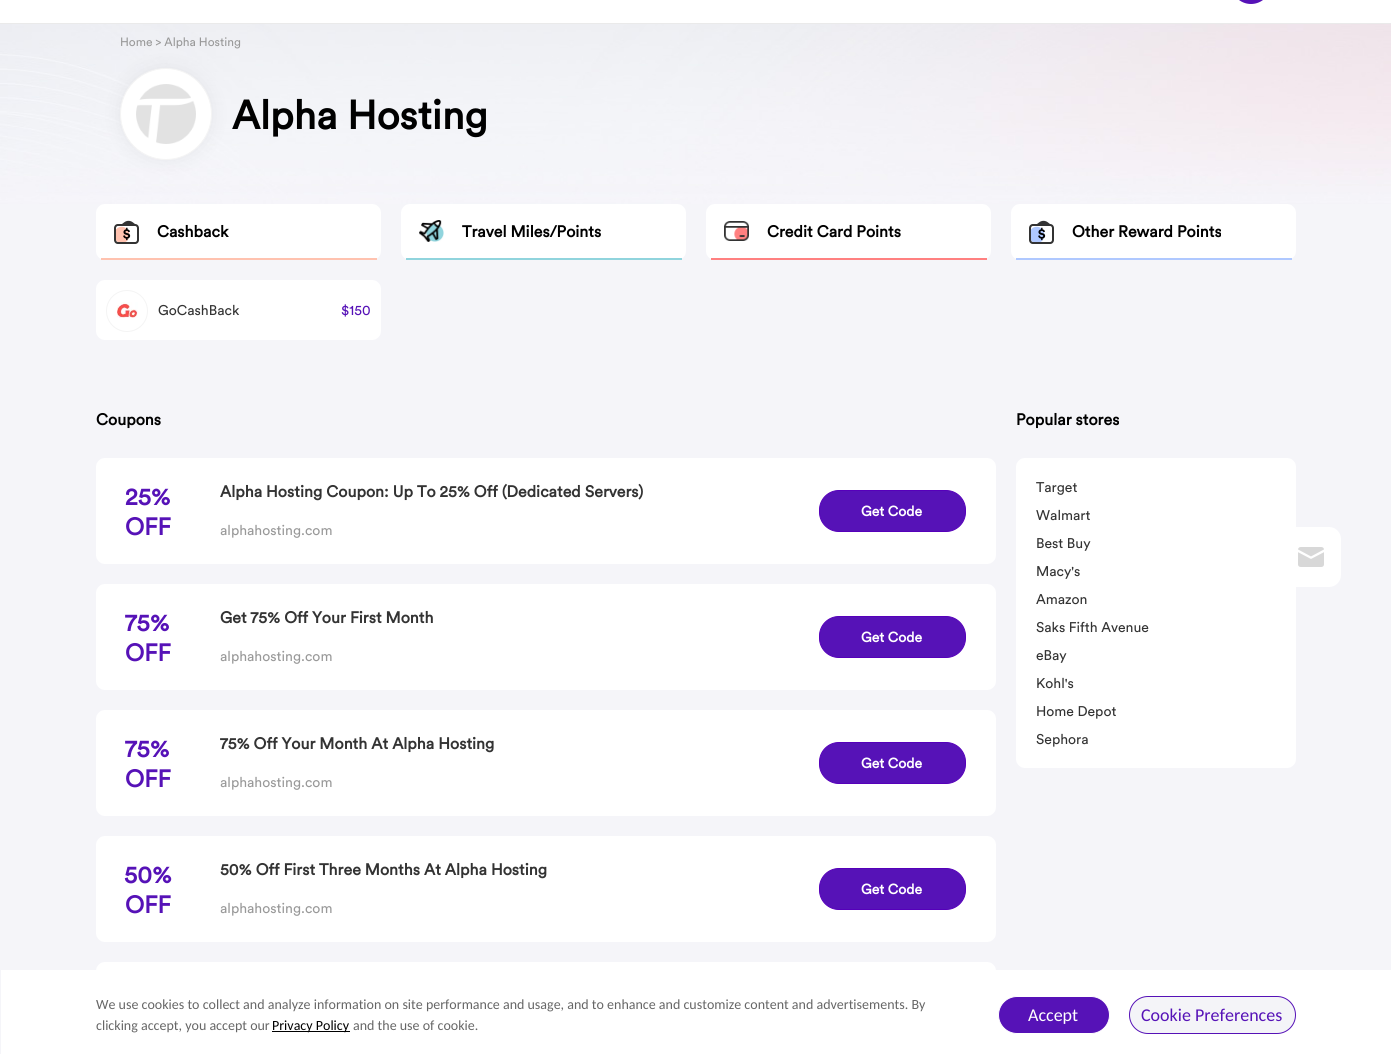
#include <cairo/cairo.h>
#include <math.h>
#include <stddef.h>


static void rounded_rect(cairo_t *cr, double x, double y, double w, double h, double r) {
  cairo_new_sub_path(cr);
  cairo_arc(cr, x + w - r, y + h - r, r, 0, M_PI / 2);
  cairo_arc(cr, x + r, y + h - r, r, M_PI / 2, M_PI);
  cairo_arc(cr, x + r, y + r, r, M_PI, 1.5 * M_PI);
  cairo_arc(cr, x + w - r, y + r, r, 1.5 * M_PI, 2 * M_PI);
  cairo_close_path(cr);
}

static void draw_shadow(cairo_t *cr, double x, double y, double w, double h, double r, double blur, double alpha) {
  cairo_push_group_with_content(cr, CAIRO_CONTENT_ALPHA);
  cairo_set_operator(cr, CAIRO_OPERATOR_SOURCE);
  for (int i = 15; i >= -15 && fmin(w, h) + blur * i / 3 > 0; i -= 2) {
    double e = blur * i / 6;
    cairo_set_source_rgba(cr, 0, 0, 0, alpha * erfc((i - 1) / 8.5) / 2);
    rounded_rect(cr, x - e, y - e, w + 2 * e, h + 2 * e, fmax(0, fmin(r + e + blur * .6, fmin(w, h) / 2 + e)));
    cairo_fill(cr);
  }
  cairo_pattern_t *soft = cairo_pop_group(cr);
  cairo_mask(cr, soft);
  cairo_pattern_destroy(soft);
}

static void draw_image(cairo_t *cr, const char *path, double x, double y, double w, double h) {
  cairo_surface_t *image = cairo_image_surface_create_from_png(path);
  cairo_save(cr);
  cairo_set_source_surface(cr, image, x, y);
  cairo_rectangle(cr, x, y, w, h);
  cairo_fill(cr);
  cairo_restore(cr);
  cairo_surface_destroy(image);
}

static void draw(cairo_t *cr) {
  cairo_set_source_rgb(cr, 245 / 255.0, 245 / 255.0, 249 / 255.0);
  cairo_paint(cr);
  cairo_set_source_rgb(cr, 1, 1, 1);
  cairo_rectangle(cr, 0, 0, 1391, 23);
  cairo_fill(cr);
  cairo_set_source_rgb(cr, 234 / 255.0, 234 / 255.0, 234 / 255.0);
  cairo_rectangle(cr, 0, 23, 1391, 1);
  cairo_fill(cr);
  cairo_set_source_rgb(cr, 86 / 255.0, 18 / 255.0, 183 / 255.0);
  rounded_rect(cr, 1231, -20, 40, 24, 20);
  cairo_fill(cr);
  draw_image(cr, "images/1.png", 0, 24, 1391, 180);
  cairo_set_source_rgb(cr, 0, 0, 0);
  draw_shadow(cr, 120, 68, 92, 92, 46, 10, 0.06);
  cairo_set_source_rgb(cr, 1, 1, 1);
  cairo_arc(cr, 166, 114, 45.5, 0, 2 * M_PI);
  cairo_fill_preserve(cr);
  cairo_set_source_rgb(cr, 244 / 255.0, 244 / 255.0, 244 / 255.0);
  cairo_set_line_width(cr, 1);
  cairo_stroke(cr);
  draw_image(cr, "images/2.png", 136, 84, 60, 60);
  cairo_set_source_rgb(cr, 1, 1, 1);
  rounded_rect(cr, 96, 204, 285, 56, 9);
  cairo_fill(cr);
  cairo_set_source_rgb(cr, 1, 194 / 255.0, 175 / 255.0);
  cairo_rectangle(cr, 101, 258, 276, 2);
  cairo_fill(cr);
  draw_image(cr, "images/3.png", 114, 220, 25, 24);
  cairo_set_source_rgb(cr, 1, 1, 1);
  rounded_rect(cr, 96, 280, 285, 60, 9);
  cairo_fill(cr);
  cairo_arc(cr, 127, 311, 20.5, 0, 2 * M_PI);
  cairo_set_source_rgb(cr, 244 / 255.0, 244 / 255.0, 244 / 255.0);
  cairo_stroke(cr);
  draw_image(cr, "images/4.png", 117, 302, 21, 16);
  cairo_set_source_rgb(cr, 1, 1, 1);
  rounded_rect(cr, 401, 204, 285, 56, 9);
  cairo_fill(cr);
  cairo_set_source_rgb(cr, 144 / 255.0, 212 / 255.0, 221 / 255.0);
  cairo_rectangle(cr, 406, 258, 276, 2);
  cairo_fill(cr);
  draw_image(cr, "images/5.png", 419, 220, 25, 22);
  cairo_set_source_rgb(cr, 1, 1, 1);
  rounded_rect(cr, 706, 204, 285, 56, 9);
  cairo_fill(cr);
  cairo_set_source_rgb(cr, 1, 128 / 255.0, 128 / 255.0);
  cairo_rectangle(cr, 711, 258, 276, 2);
  cairo_fill(cr);
  draw_image(cr, "images/6.png", 724, 221, 25, 20);
  cairo_set_source_rgb(cr, 1, 1, 1);
  rounded_rect(cr, 1011, 204, 285, 56, 9);
  cairo_fill(cr);
  cairo_set_source_rgb(cr, 175 / 255.0, 200 / 255.0, 1);
  cairo_rectangle(cr, 1016, 258, 276, 2);
  cairo_fill(cr);
  draw_image(cr, "images/7.png", 1029, 220, 25, 24);
  cairo_set_source_rgb(cr, 1, 1, 1);
  rounded_rect(cr, 96, 458, 900, 106, 9);
  cairo_fill(cr);
  cairo_set_source_rgb(cr, 86 / 255.0, 18 / 255.0, 183 / 255.0);
  rounded_rect(cr, 819.5, 490.5, 146, 41, 19.5);
  cairo_fill_preserve(cr);
  cairo_set_source_rgb(cr, 86 / 255.0, 0, 186 / 255.0);
  cairo_stroke(cr);
  cairo_set_source_rgb(cr, 1, 1, 1);
  rounded_rect(cr, 96, 584, 900, 106, 9);
  cairo_fill(cr);
  cairo_set_source_rgb(cr, 86 / 255.0, 18 / 255.0, 183 / 255.0);
  rounded_rect(cr, 819.5, 616.5, 146, 41, 19.5);
  cairo_fill_preserve(cr);
  cairo_set_source_rgb(cr, 86 / 255.0, 0, 186 / 255.0);
  cairo_stroke(cr);
  cairo_set_source_rgb(cr, 1, 1, 1);
  rounded_rect(cr, 96, 710, 900, 106, 9);
  cairo_fill(cr);
  cairo_set_source_rgb(cr, 86 / 255.0, 18 / 255.0, 183 / 255.0);
  rounded_rect(cr, 819.5, 742.5, 146, 41, 19.5);
  cairo_fill_preserve(cr);
  cairo_set_source_rgb(cr, 86 / 255.0, 0, 186 / 255.0);
  cairo_stroke(cr);
  cairo_set_source_rgb(cr, 1, 1, 1);
  rounded_rect(cr, 96, 836, 900, 106, 9);
  cairo_fill(cr);
  cairo_set_source_rgb(cr, 86 / 255.0, 18 / 255.0, 183 / 255.0);
  rounded_rect(cr, 819.5, 868.5, 146, 41, 19.5);
  cairo_fill_preserve(cr);
  cairo_set_source_rgb(cr, 86 / 255.0, 0, 186 / 255.0);
  cairo_stroke(cr);
  cairo_set_source_rgb(cr, 1, 1, 1);
  rounded_rect(cr, 96, 962, 900, 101, 9);
  cairo_fill(cr);
  rounded_rect(cr, 1016, 458, 280, 310, 9);
  cairo_fill(cr);
  rounded_rect(cr, 1281, 527, 60, 60, 12);
  cairo_fill(cr);
  draw_image(cr, "images/8.png", 1298, 547, 26, 20);
  cairo_rectangle(cr, 1, 970, 1390, 84);
  cairo_fill(cr);
  cairo_set_source_rgb(cr, 0, 0, 0);
  cairo_rectangle(cr, 272, 1031, 78, 1);
  cairo_fill(cr);
  cairo_set_source_rgb(cr, 86 / 255.0, 18 / 255.0, 183 / 255.0);
  rounded_rect(cr, 998.5, 996.5, 111, 37, 18.5);
  cairo_fill_preserve(cr);
  cairo_set_source_rgb(cr, 1, 1, 1);
  cairo_stroke(cr);
  cairo_set_source_rgb(cr, 244 / 255.0, 244 / 255.0, 248 / 255.0);
  rounded_rect(cr, 1129.5, 996.5, 166, 37, 18.5);
  cairo_fill_preserve(cr);
  cairo_set_source_rgb(cr, 86 / 255.0, 18 / 255.0, 183 / 255.0);
  cairo_stroke(cr);
  cairo_select_font_face(cr, "Circular", CAIRO_FONT_SLANT_NORMAL, CAIRO_FONT_WEIGHT_NORMAL);
  cairo_set_font_size(cr, 12);
  cairo_set_source_rgb(cr, 153 / 255.0, 153 / 255.0, 153 / 255.0);
  cairo_move_to(cr, 120, 46);
  cairo_show_text(cr, "Home > Alpha Hosting");
  cairo_select_font_face(cr, "Circular", CAIRO_FONT_SLANT_NORMAL, CAIRO_FONT_WEIGHT_BOLD);
  cairo_set_font_size(cr, 40);
  cairo_set_source_rgb(cr, 0, 0, 0);
  cairo_move_to(cr, 232, 129);
  cairo_show_text(cr, "Alpha Hosting");
  cairo_set_font_size(cr, 16);
  cairo_move_to(cr, 157, 237);
  cairo_show_text(cr, "Cashback");
  cairo_select_font_face(cr, "Circular", CAIRO_FONT_SLANT_NORMAL, CAIRO_FONT_WEIGHT_NORMAL);
  cairo_set_font_size(cr, 14);
  cairo_set_source_rgb(cr, 51 / 255.0, 51 / 255.0, 51 / 255.0);
  cairo_move_to(cr, 158, 315);
  cairo_show_text(cr, "GoCashBack");
  cairo_set_source_rgb(cr, 86 / 255.0, 18 / 255.0, 183 / 255.0);
  cairo_move_to(cr, 341, 315);
  cairo_show_text(cr, "$150");
  cairo_select_font_face(cr, "Circular", CAIRO_FONT_SLANT_NORMAL, CAIRO_FONT_WEIGHT_BOLD);
  cairo_set_font_size(cr, 16);
  cairo_set_source_rgb(cr, 0, 0, 0);
  cairo_move_to(cr, 462, 237);
  cairo_show_text(cr, "Travel Miles/Points");
  cairo_move_to(cr, 767, 237);
  cairo_show_text(cr, "Credit Card Points");
  cairo_move_to(cr, 1072, 237);
  cairo_show_text(cr, "Other Reward Points");
  cairo_move_to(cr, 96, 425);
  cairo_show_text(cr, "Coupons");
  cairo_set_font_size(cr, 24);
  cairo_set_source_rgb(cr, 86 / 255.0, 18 / 255.0, 183 / 255.0);
  cairo_move_to(cr, 125, 505);
  cairo_show_text(cr, "25%");
  cairo_move_to(cr, 125, 535);
  cairo_show_text(cr, "OFF");
  cairo_set_font_size(cr, 16);
  cairo_set_source_rgb(cr, 51 / 255.0, 51 / 255.0, 51 / 255.0);
  cairo_move_to(cr, 220, 497);
  cairo_show_text(cr, "Alpha Hosting Coupon: Up To 25% Off (Dedicated Servers)");
  cairo_select_font_face(cr, "Circular", CAIRO_FONT_SLANT_NORMAL, CAIRO_FONT_WEIGHT_NORMAL);
  cairo_set_font_size(cr, 14);
  cairo_set_source_rgb(cr, 153 / 255.0, 153 / 255.0, 153 / 255.0);
  cairo_move_to(cr, 220, 535);
  cairo_show_text(cr, "alphahosting.com");
  cairo_select_font_face(cr, "Circular", CAIRO_FONT_SLANT_NORMAL, CAIRO_FONT_WEIGHT_BOLD);
  cairo_set_source_rgb(cr, 1, 1, 1);
  cairo_move_to(cr, 861, 516);
  cairo_show_text(cr, "Get Code");
  cairo_set_font_size(cr, 24);
  cairo_set_source_rgb(cr, 86 / 255.0, 18 / 255.0, 183 / 255.0);
  cairo_move_to(cr, 125, 631);
  cairo_show_text(cr, "75%");
  cairo_move_to(cr, 125, 661);
  cairo_show_text(cr, "OFF");
  cairo_set_font_size(cr, 16);
  cairo_set_source_rgb(cr, 51 / 255.0, 51 / 255.0, 51 / 255.0);
  cairo_move_to(cr, 220, 623);
  cairo_show_text(cr, "Get 75% Off Your First Month");
  cairo_select_font_face(cr, "Circular", CAIRO_FONT_SLANT_NORMAL, CAIRO_FONT_WEIGHT_NORMAL);
  cairo_set_font_size(cr, 14);
  cairo_set_source_rgb(cr, 153 / 255.0, 153 / 255.0, 153 / 255.0);
  cairo_move_to(cr, 220, 661);
  cairo_show_text(cr, "alphahosting.com");
  cairo_select_font_face(cr, "Circular", CAIRO_FONT_SLANT_NORMAL, CAIRO_FONT_WEIGHT_BOLD);
  cairo_set_source_rgb(cr, 1, 1, 1);
  cairo_move_to(cr, 861, 642);
  cairo_show_text(cr, "Get Code");
  cairo_set_font_size(cr, 24);
  cairo_set_source_rgb(cr, 86 / 255.0, 18 / 255.0, 183 / 255.0);
  cairo_move_to(cr, 125, 757);
  cairo_show_text(cr, "75%");
  cairo_move_to(cr, 125, 787);
  cairo_show_text(cr, "OFF");
  cairo_set_font_size(cr, 16);
  cairo_set_source_rgb(cr, 51 / 255.0, 51 / 255.0, 51 / 255.0);
  cairo_move_to(cr, 220, 749);
  cairo_show_text(cr, "75% Off Your Month At Alpha Hosting");
  cairo_select_font_face(cr, "Circular", CAIRO_FONT_SLANT_NORMAL, CAIRO_FONT_WEIGHT_NORMAL);
  cairo_set_font_size(cr, 14);
  cairo_set_source_rgb(cr, 153 / 255.0, 153 / 255.0, 153 / 255.0);
  cairo_move_to(cr, 220, 787);
  cairo_show_text(cr, "alphahosting.com");
  cairo_select_font_face(cr, "Circular", CAIRO_FONT_SLANT_NORMAL, CAIRO_FONT_WEIGHT_BOLD);
  cairo_set_source_rgb(cr, 1, 1, 1);
  cairo_move_to(cr, 861, 768);
  cairo_show_text(cr, "Get Code");
  cairo_set_font_size(cr, 24);
  cairo_set_source_rgb(cr, 86 / 255.0, 18 / 255.0, 183 / 255.0);
  cairo_move_to(cr, 124, 883);
  cairo_show_text(cr, "50%");
  cairo_move_to(cr, 125, 913);
  cairo_show_text(cr, "OFF");
  cairo_set_font_size(cr, 16);
  cairo_set_source_rgb(cr, 51 / 255.0, 51 / 255.0, 51 / 255.0);
  cairo_move_to(cr, 220, 875);
  cairo_show_text(cr, "50% Off First Three Months At Alpha Hosting");
  cairo_select_font_face(cr, "Circular", CAIRO_FONT_SLANT_NORMAL, CAIRO_FONT_WEIGHT_NORMAL);
  cairo_set_font_size(cr, 14);
  cairo_set_source_rgb(cr, 153 / 255.0, 153 / 255.0, 153 / 255.0);
  cairo_move_to(cr, 220, 913);
  cairo_show_text(cr, "alphahosting.com");
  cairo_select_font_face(cr, "Circular", CAIRO_FONT_SLANT_NORMAL, CAIRO_FONT_WEIGHT_BOLD);
  cairo_set_source_rgb(cr, 1, 1, 1);
  cairo_move_to(cr, 861, 894);
  cairo_show_text(cr, "Get Code");
  cairo_set_font_size(cr, 16);
  cairo_set_source_rgb(cr, 0, 0, 0);
  cairo_move_to(cr, 1016, 425);
  cairo_show_text(cr, "Popular stores");
  cairo_select_font_face(cr, "Circular", CAIRO_FONT_SLANT_NORMAL, CAIRO_FONT_WEIGHT_NORMAL);
  cairo_set_font_size(cr, 14);
  cairo_set_source_rgb(cr, 51 / 255.0, 51 / 255.0, 51 / 255.0);
  cairo_move_to(cr, 1036, 492);
  cairo_show_text(cr, "Target");
  cairo_move_to(cr, 1036, 520);
  cairo_show_text(cr, "Walmart");
  cairo_move_to(cr, 1036, 548);
  cairo_show_text(cr, "Best Buy");
  cairo_move_to(cr, 1036, 576);
  cairo_show_text(cr, "Macy's");
  cairo_move_to(cr, 1036, 604);
  cairo_show_text(cr, "Amazon");
  cairo_move_to(cr, 1036, 632);
  cairo_show_text(cr, "Saks Fifth Avenue");
  cairo_move_to(cr, 1036, 660);
  cairo_show_text(cr, "eBay");
  cairo_move_to(cr, 1036, 688);
  cairo_show_text(cr, "Kohl's");
  cairo_move_to(cr, 1036, 716);
  cairo_show_text(cr, "Home Depot");
  cairo_move_to(cr, 1036, 744);
  cairo_show_text(cr, "Sephora");
  cairo_select_font_face(cr, "Carlito", CAIRO_FONT_SLANT_NORMAL, CAIRO_FONT_WEIGHT_NORMAL);
  cairo_set_source_rgb(cr, 102 / 255.0, 102 / 255.0, 102 / 255.0);
  cairo_move_to(cr, 96, 1009);
  cairo_show_text(cr, "We use cookies to collect and analyze information on site performance and usage, and to enhance and customize content and advertisements. By");
  cairo_move_to(cr, 96, 1030);
  cairo_show_text(cr, "clicking accept, you accept our");
  cairo_set_source_rgb(cr, 0, 0, 0);
  cairo_move_to(cr, 272, 1030);
  cairo_show_text(cr, "Privacy Policy");
  cairo_set_source_rgb(cr, 102 / 255.0, 102 / 255.0, 102 / 255.0);
  cairo_move_to(cr, 353, 1030);
  cairo_show_text(cr, "and the use of cookie.");
  cairo_set_font_size(cr, 18);
  cairo_set_source_rgb(cr, 1, 1, 1);
  cairo_move_to(cr, 1028, 1021);
  cairo_show_text(cr, "Accept");
  cairo_set_source_rgb(cr, 86 / 255.0, 18 / 255.0, 183 / 255.0);
  cairo_move_to(cr, 1141, 1021);
  cairo_show_text(cr, "Cookie Preferences");
}

int main(void) {
  cairo_surface_t *surface = cairo_image_surface_create(CAIRO_FORMAT_RGB24, 1391, 1054);
  cairo_t *cr = cairo_create(surface);
  cairo_font_options_t *options = cairo_font_options_create();
  cairo_font_options_set_hint_metrics(options, CAIRO_HINT_METRICS_OFF);
  cairo_font_options_set_hint_style(options, CAIRO_HINT_STYLE_NONE);
  cairo_set_font_options(cr, options);
  cairo_set_miter_limit(cr, 4);
  draw(cr);
  cairo_surface_write_to_png(surface, "out.png");
  cairo_font_options_destroy(options);
  cairo_destroy(cr);
  cairo_surface_destroy(surface);
  return 0;
}
